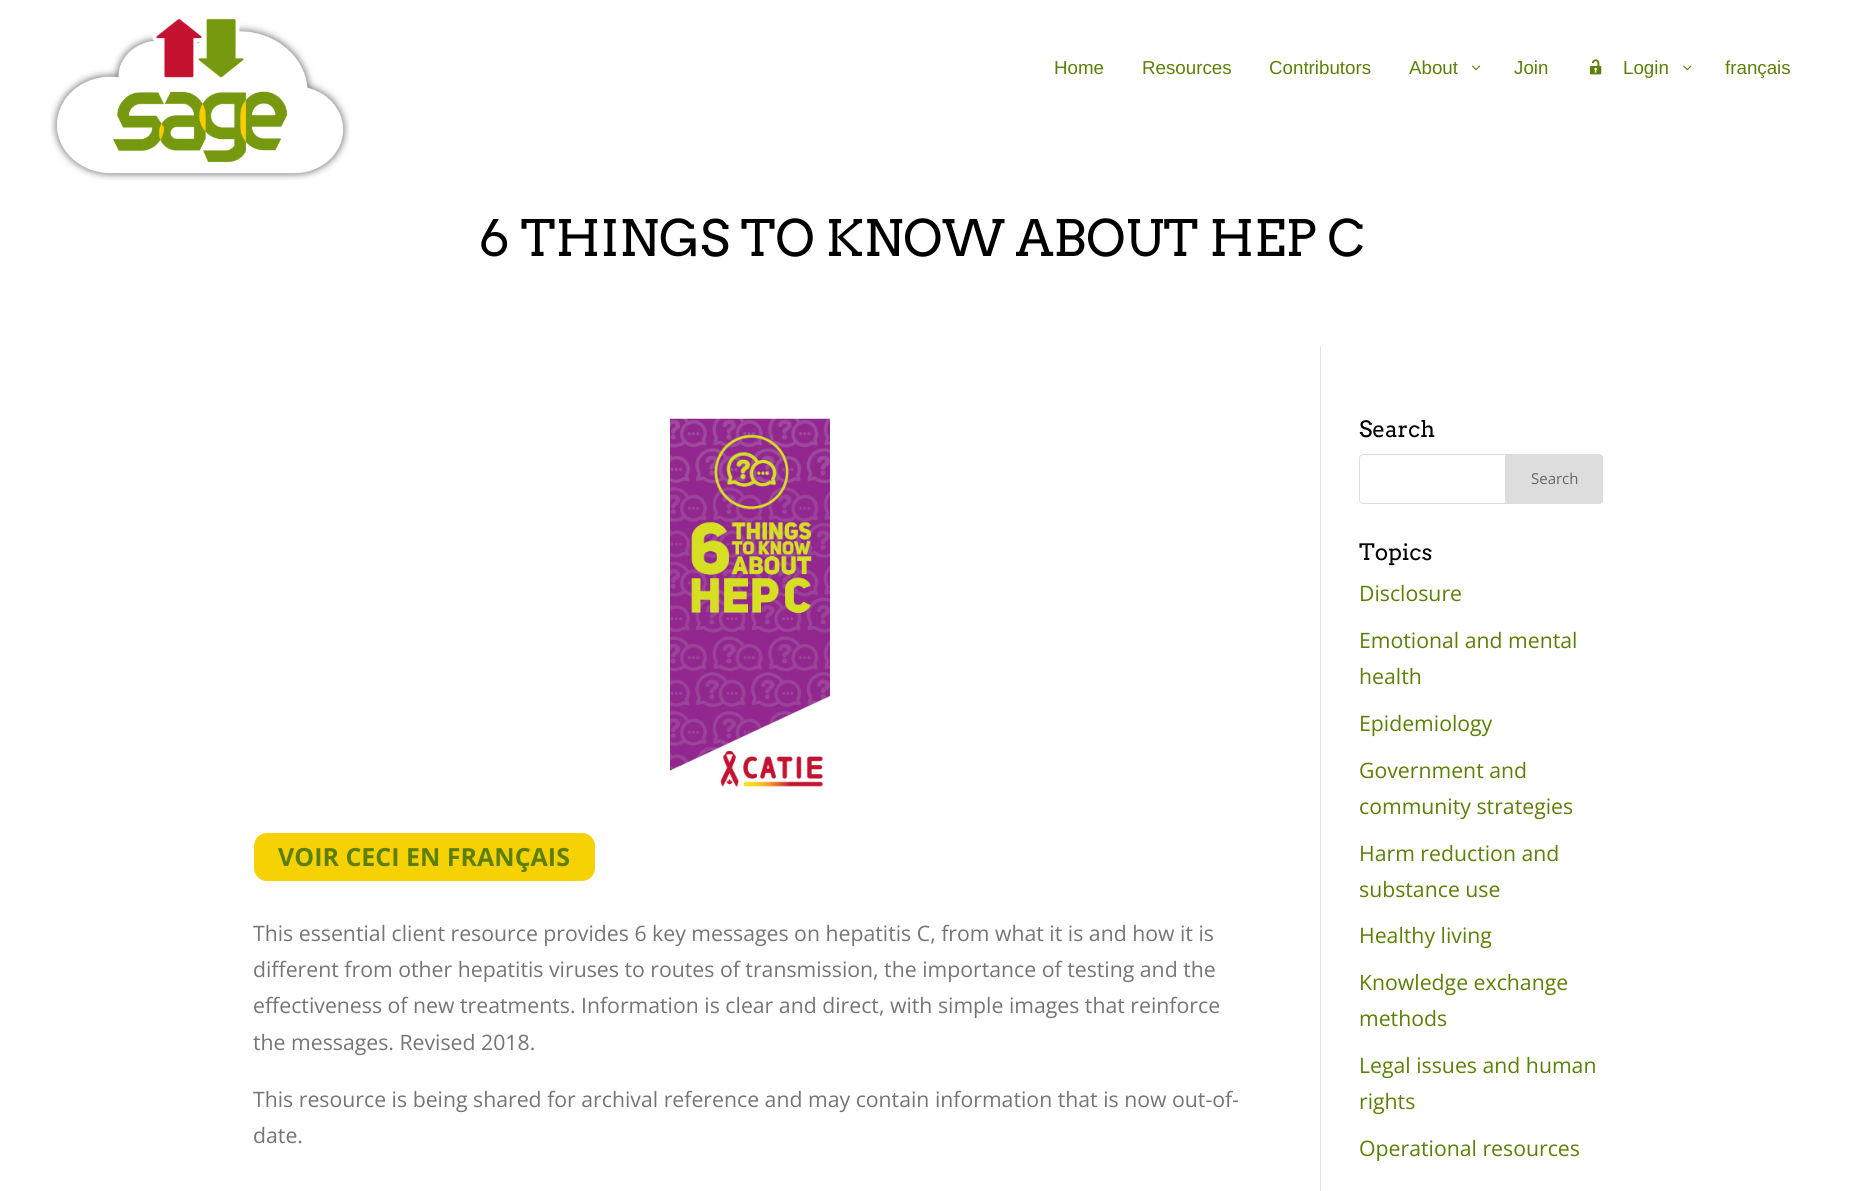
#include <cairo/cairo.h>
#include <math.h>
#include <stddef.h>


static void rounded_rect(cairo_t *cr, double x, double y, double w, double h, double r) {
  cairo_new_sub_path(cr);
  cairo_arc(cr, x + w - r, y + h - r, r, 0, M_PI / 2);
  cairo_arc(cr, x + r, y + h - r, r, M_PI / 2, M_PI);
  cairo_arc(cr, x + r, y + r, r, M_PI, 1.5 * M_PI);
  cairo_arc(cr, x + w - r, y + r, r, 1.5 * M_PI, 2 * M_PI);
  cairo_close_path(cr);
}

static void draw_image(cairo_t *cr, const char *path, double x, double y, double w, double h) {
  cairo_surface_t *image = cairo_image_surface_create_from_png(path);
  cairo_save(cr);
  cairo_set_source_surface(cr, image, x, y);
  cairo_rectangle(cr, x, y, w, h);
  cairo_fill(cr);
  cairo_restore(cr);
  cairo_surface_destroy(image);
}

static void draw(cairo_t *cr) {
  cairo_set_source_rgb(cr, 1, 1, 1);
  cairo_paint(cr);
  draw_image(cr, "images/1.png", 50, 18, 300, 162);
  draw_image(cr, "images/2.png", 1471, 65, 10, 6);
  draw_image(cr, "images/3.png", 1590, 59, 12, 16);
  draw_image(cr, "images/4.png", 1683, 65, 9, 6);
  cairo_set_source_rgb(cr, 226 / 255.0, 226 / 255.0, 226 / 255.0);
  cairo_rectangle(cr, 1320, 346, 1, 845);
  cairo_fill(cr);
  draw_image(cr, "images/5.png", 670, 418, 160, 369);
  cairo_set_source_rgb(cr, 246 / 255.0, 209 / 255.0, 3 / 255.0);
  rounded_rect(cr, 254, 833, 341, 48, 13);
  cairo_fill(cr);
  rounded_rect(cr, 1359.5, 454.5, 243, 49, 3.5);
  cairo_set_source_rgb(cr, 221 / 255.0, 221 / 255.0, 221 / 255.0);
  cairo_set_line_width(cr, 1);
  cairo_stroke(cr);
  cairo_new_path(cr);
  cairo_move_to(cr, 1505.5, 454.5);
  cairo_line_to(cr, 1599, 454.5);
  cairo_curve_to(cr, 1601, 454.5, 1602.5, 456, 1602.5, 458);
  cairo_line_to(cr, 1602.5, 500);
  cairo_curve_to(cr, 1602.5, 502, 1601, 503.5, 1599, 503.5);
  cairo_line_to(cr, 1505.5, 503.5);
  cairo_close_path(cr);
  cairo_fill_preserve(cr);
  cairo_stroke(cr);
  cairo_select_font_face(cr, "Liberation Sans", CAIRO_FONT_SLANT_NORMAL, CAIRO_FONT_WEIGHT_NORMAL);
  cairo_set_font_size(cr, 18.75);
  cairo_set_source_rgb(cr, 92 / 255.0, 128 / 255.0, 7 / 255.0);
  cairo_move_to(cr, 1054, 74);
  cairo_show_text(cr, "Home");
  cairo_move_to(cr, 1142, 74);
  cairo_show_text(cr, "Resources");
  cairo_move_to(cr, 1269, 74);
  cairo_show_text(cr, "Contributors");
  cairo_move_to(cr, 1409, 74);
  cairo_show_text(cr, "About");
  cairo_move_to(cr, 1514, 74);
  cairo_show_text(cr, "Join");
  cairo_move_to(cr, 1623, 74);
  cairo_show_text(cr, "Login");
  cairo_move_to(cr, 1725, 74);
  cairo_show_text(cr, "français");
  cairo_select_font_face(cr, "Arvo", CAIRO_FONT_SLANT_NORMAL, CAIRO_FONT_WEIGHT_NORMAL);
  cairo_set_font_size(cr, 50);
  cairo_set_source_rgb(cr, 0, 0, 0);
  cairo_move_to(cr, 479, 256);
  cairo_show_text(cr, "6 THINGS TO KNOW ABOUT HEP C");
  cairo_select_font_face(cr, "Open Sans", CAIRO_FONT_SLANT_NORMAL, CAIRO_FONT_WEIGHT_BOLD);
  cairo_set_font_size(cr, 25);
  cairo_set_source_rgb(cr, 92 / 255.0, 128 / 255.0, 7 / 255.0);
  cairo_move_to(cr, 278, 866);
  cairo_show_text(cr, "VOIR CECI EN FRANÇAIS");
  cairo_select_font_face(cr, "Open Sans", CAIRO_FONT_SLANT_NORMAL, CAIRO_FONT_WEIGHT_NORMAL);
  cairo_set_font_size(cr, 21.25);
  cairo_set_source_rgb(cr, 117 / 255.0, 117 / 255.0, 117 / 255.0);
  cairo_move_to(cr, 253, 941);
  cairo_show_text(cr, "This essential client resource provides 6 key messages on hepatitis C, from what it is and how it is");
  cairo_move_to(cr, 253, 977);
  cairo_show_text(cr, "different from other hepatitis viruses to routes of transmission, the importance of testing and the");
  cairo_move_to(cr, 253, 1013);
  cairo_show_text(cr, "effectiveness of new treatments. Information is clear and direct, with simple images that reinforce");
  cairo_move_to(cr, 253, 1050);
  cairo_show_text(cr, "the messages. Revised 2018.");
  cairo_move_to(cr, 253, 1107);
  cairo_show_text(cr, "This resource is being shared for archival reference and may contain information that is now out-of-");
  cairo_move_to(cr, 253, 1143);
  cairo_show_text(cr, "date.");
  cairo_select_font_face(cr, "Arvo", CAIRO_FONT_SLANT_NORMAL, CAIRO_FONT_WEIGHT_NORMAL);
  cairo_set_font_size(cr, 22.5);
  cairo_set_source_rgb(cr, 0, 0, 0);
  cairo_move_to(cr, 1359, 437);
  cairo_show_text(cr, "Search");
  cairo_select_font_face(cr, "Open Sans", CAIRO_FONT_SLANT_NORMAL, CAIRO_FONT_WEIGHT_NORMAL);
  cairo_set_font_size(cr, 15);
  cairo_set_source_rgb(cr, 102 / 255.0, 102 / 255.0, 102 / 255.0);
  cairo_move_to(cr, 1531, 484);
  cairo_show_text(cr, "Search");
  cairo_select_font_face(cr, "Arvo", CAIRO_FONT_SLANT_NORMAL, CAIRO_FONT_WEIGHT_NORMAL);
  cairo_set_font_size(cr, 22.5);
  cairo_set_source_rgb(cr, 0, 0, 0);
  cairo_move_to(cr, 1359, 560);
  cairo_show_text(cr, "Topics");
  cairo_select_font_face(cr, "Open Sans", CAIRO_FONT_SLANT_NORMAL, CAIRO_FONT_WEIGHT_NORMAL);
  cairo_set_font_size(cr, 21.25);
  cairo_set_source_rgb(cr, 92 / 255.0, 128 / 255.0, 7 / 255.0);
  cairo_move_to(cr, 1359, 601);
  cairo_show_text(cr, "Disclosure");
  cairo_move_to(cr, 1359, 648);
  cairo_show_text(cr, "Emotional and mental");
  cairo_move_to(cr, 1359, 684);
  cairo_show_text(cr, "health");
  cairo_move_to(cr, 1359, 731);
  cairo_show_text(cr, "Epidemiology");
  cairo_move_to(cr, 1359, 778);
  cairo_show_text(cr, "Government and");
  cairo_move_to(cr, 1359, 814);
  cairo_show_text(cr, "community strategies");
  cairo_move_to(cr, 1359, 861);
  cairo_show_text(cr, "Harm reduction and");
  cairo_move_to(cr, 1359, 897);
  cairo_show_text(cr, "substance use");
  cairo_move_to(cr, 1359, 943);
  cairo_show_text(cr, "Healthy living");
  cairo_move_to(cr, 1359, 990);
  cairo_show_text(cr, "Knowledge exchange");
  cairo_move_to(cr, 1359, 1026);
  cairo_show_text(cr, "methods");
  cairo_move_to(cr, 1359, 1073);
  cairo_show_text(cr, "Legal issues and human");
  cairo_move_to(cr, 1359, 1109);
  cairo_show_text(cr, "rights");
  cairo_move_to(cr, 1359, 1156);
  cairo_show_text(cr, "Operational resources");
}

int main(void) {
  cairo_surface_t *surface = cairo_image_surface_create(CAIRO_FORMAT_RGB24, 1856, 1191);
  cairo_t *cr = cairo_create(surface);
  cairo_font_options_t *options = cairo_font_options_create();
  cairo_font_options_set_hint_metrics(options, CAIRO_HINT_METRICS_OFF);
  cairo_font_options_set_hint_style(options, CAIRO_HINT_STYLE_NONE);
  cairo_set_font_options(cr, options);
  cairo_set_miter_limit(cr, 4);
  draw(cr);
  cairo_surface_write_to_png(surface, "out.png");
  cairo_font_options_destroy(options);
  cairo_destroy(cr);
  cairo_surface_destroy(surface);
  return 0;
}
